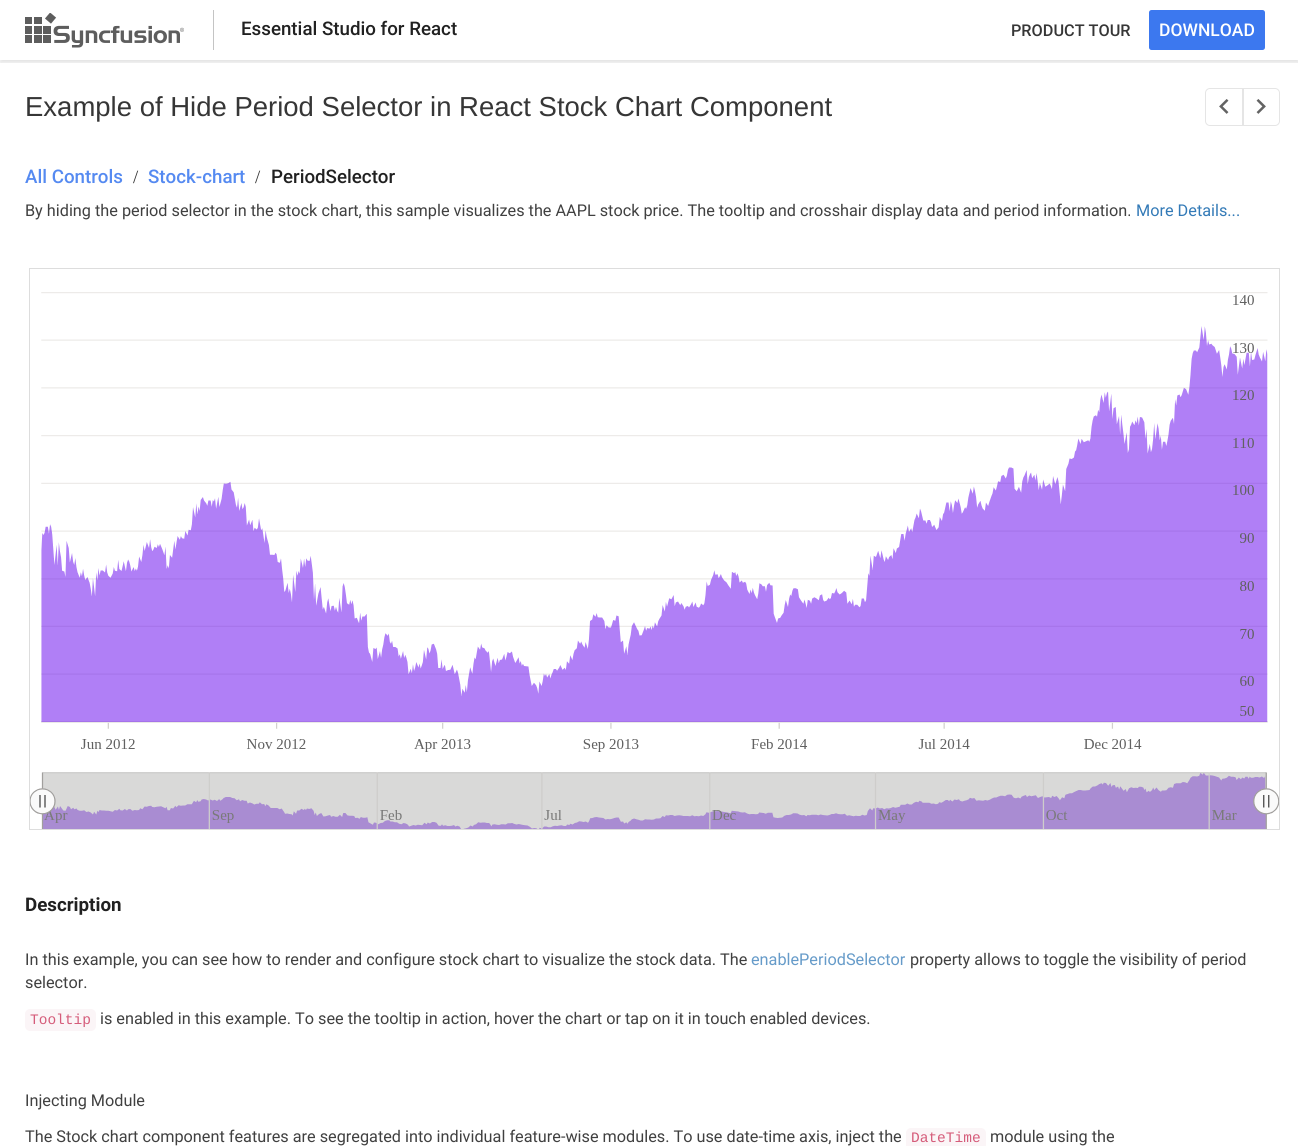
#include <cairo/cairo.h>
#include <math.h>
#include <stddef.h>


static void rounded_rect(cairo_t *cr, double x, double y, double w, double h, double r) {
  cairo_new_sub_path(cr);
  cairo_arc(cr, x + w - r, y + h - r, r, 0, M_PI / 2);
  cairo_arc(cr, x + r, y + h - r, r, M_PI / 2, M_PI);
  cairo_arc(cr, x + r, y + r, r, M_PI, 1.5 * M_PI);
  cairo_arc(cr, x + w - r, y + r, r, 1.5 * M_PI, 2 * M_PI);
  cairo_close_path(cr);
}

static void draw_shadow(cairo_t *cr, double x, double y, double w, double h, double r, double blur, double alpha) {
  cairo_push_group_with_content(cr, CAIRO_CONTENT_ALPHA);
  cairo_set_operator(cr, CAIRO_OPERATOR_SOURCE);
  for (int i = 15; i >= -15 && fmin(w, h) + blur * i / 3 > 0; i -= 2) {
    double e = blur * i / 6;
    cairo_set_source_rgba(cr, 0, 0, 0, alpha * erfc((i - 1) / 8.5) / 2);
    rounded_rect(cr, x - e, y - e, w + 2 * e, h + 2 * e, fmax(0, fmin(r + e + blur * .6, fmin(w, h) / 2 + e)));
    cairo_fill(cr);
  }
  cairo_pattern_t *soft = cairo_pop_group(cr);
  cairo_mask(cr, soft);
  cairo_pattern_destroy(soft);
}

static void draw_image(cairo_t *cr, const char *path, double x, double y, double w, double h) {
  cairo_surface_t *image = cairo_image_surface_create_from_png(path);
  cairo_save(cr);
  cairo_set_source_surface(cr, image, x, y);
  cairo_rectangle(cr, x, y, w, h);
  cairo_fill(cr);
  cairo_restore(cr);
  cairo_surface_destroy(image);
}

static void draw(cairo_t *cr) {
  cairo_set_source_rgb(cr, 1, 1, 1);
  cairo_paint(cr);
  cairo_save(cr);
  cairo_rectangle(cr, 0, 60, 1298, 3);
  cairo_clip(cr);
  cairo_set_source_rgb(cr, 0, 0, 0);
  draw_shadow(cr, 0, 3, 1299, 60, 0, 2.5, 0.12);
  cairo_restore(cr);
  draw_image(cr, "images/1.png", 25, 13, 159, 35);
  cairo_set_source_rgb(cr, 196 / 255.0, 196 / 255.0, 196 / 255.0);
  cairo_rectangle(cr, 213, 10, 1, 40);
  cairo_fill(cr);
  cairo_set_source_rgb(cr, 60 / 255.0, 120 / 255.0, 239 / 255.0);
  rounded_rect(cr, 1149, 10, 116, 40, 2.5);
  cairo_fill(cr);
  cairo_set_source_rgb(cr, 1, 1, 1);
  cairo_rectangle(cr, 0, 63, 1298, 3);
  cairo_fill(cr);
  cairo_new_path(cr);
  cairo_move_to(cr, 1210, 88.5);
  cairo_line_to(cr, 1242.5, 88.5);
  cairo_line_to(cr, 1242.5, 125.5);
  cairo_line_to(cr, 1210, 125.5);
  cairo_curve_to(cr, 1207.5, 125.5, 1205.5, 123.5, 1205.5, 121);
  cairo_line_to(cr, 1205.5, 93);
  cairo_curve_to(cr, 1205.5, 90.5, 1207.5, 88.5, 1210, 88.5);
  cairo_close_path(cr);
  cairo_set_source_rgb(cr, 229 / 255.0, 229 / 255.0, 229 / 255.0);
  cairo_set_line_width(cr, 1);
  cairo_stroke(cr);
  draw_image(cr, "images/2.png", 1219, 99, 10, 15);
  cairo_new_path(cr);
  cairo_move_to(cr, 1243.5, 88.5);
  cairo_line_to(cr, 1275, 88.5);
  cairo_curve_to(cr, 1277.5, 88.5, 1279.5, 90.5, 1279.5, 93);
  cairo_line_to(cr, 1279.5, 121);
  cairo_curve_to(cr, 1279.5, 123.5, 1277.5, 125.5, 1275, 125.5);
  cairo_line_to(cr, 1243.5, 125.5);
  cairo_close_path(cr);
  cairo_stroke(cr);
  draw_image(cr, "images/3.png", 1256, 99, 10, 15);
  draw_image(cr, "images/4.png", 30, 292, 1249, 537);
  cairo_rectangle(cr, 29.5, 268.5, 1250, 561);
  cairo_set_source_rgb(cr, 221 / 255.0, 221 / 255.0, 221 / 255.0);
  cairo_stroke(cr);
  cairo_set_source_rgb(cr, 251 / 255.0, 245 / 255.0, 247 / 255.0);
  rounded_rect(cr, 25, 1009, 71, 22, 5);
  cairo_fill(cr);
  rounded_rect(cr, 906, 1128, 80, 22, 5);
  cairo_fill(cr);
  cairo_select_font_face(cr, "Roboto Medium", CAIRO_FONT_SLANT_NORMAL, CAIRO_FONT_WEIGHT_NORMAL);
  cairo_set_font_size(cr, 18.75);
  cairo_set_source_rgb(cr, 33 / 255.0, 33 / 255.0, 33 / 255.0);
  cairo_move_to(cr, 241, 35);
  cairo_show_text(cr, "Essential Studio for React");
  cairo_set_font_size(cr, 16.25);
  cairo_set_source_rgb(cr, 54 / 255.0, 54 / 255.0, 54 / 255.0);
  cairo_move_to(cr, 1011, 36);
  cairo_show_text(cr, "PRODUCT TOUR");
  cairo_set_font_size(cr, 17.5);
  cairo_set_source_rgb(cr, 1, 1, 1);
  cairo_move_to(cr, 1159, 36);
  cairo_show_text(cr, "DOWNLOAD");
  cairo_select_font_face(cr, "Liberation Sans", CAIRO_FONT_SLANT_NORMAL, CAIRO_FONT_WEIGHT_NORMAL);
  cairo_set_font_size(cr, 27.5);
  cairo_set_source_rgb(cr, 54 / 255.0, 54 / 255.0, 54 / 255.0);
  cairo_move_to(cr, 25, 116);
  cairo_show_text(cr, "Example of Hide Period Selector in React Stock Chart Component");
  cairo_select_font_face(cr, "Roboto Medium", CAIRO_FONT_SLANT_NORMAL, CAIRO_FONT_WEIGHT_NORMAL);
  cairo_set_font_size(cr, 18.75);
  cairo_set_source_rgb(cr, 85 / 255.0, 138 / 255.0, 241 / 255.0);
  cairo_move_to(cr, 25, 183);
  cairo_show_text(cr, "All Controls");
  cairo_select_font_face(cr, "Liberation Serif", CAIRO_FONT_SLANT_NORMAL, CAIRO_FONT_WEIGHT_NORMAL);
  cairo_set_source_rgb(cr, 54 / 255.0, 54 / 255.0, 54 / 255.0);
  cairo_move_to(cr, 133, 183);
  cairo_show_text(cr, "/");
  cairo_select_font_face(cr, "Roboto Medium", CAIRO_FONT_SLANT_NORMAL, CAIRO_FONT_WEIGHT_NORMAL);
  cairo_set_source_rgb(cr, 85 / 255.0, 138 / 255.0, 241 / 255.0);
  cairo_move_to(cr, 148, 183);
  cairo_show_text(cr, "Stock-chart");
  cairo_select_font_face(cr, "Liberation Serif", CAIRO_FONT_SLANT_NORMAL, CAIRO_FONT_WEIGHT_NORMAL);
  cairo_set_source_rgb(cr, 54 / 255.0, 54 / 255.0, 54 / 255.0);
  cairo_move_to(cr, 255, 183);
  cairo_show_text(cr, "/");
  cairo_select_font_face(cr, "Roboto Medium", CAIRO_FONT_SLANT_NORMAL, CAIRO_FONT_WEIGHT_NORMAL);
  cairo_set_source_rgb(cr, 33 / 255.0, 33 / 255.0, 33 / 255.0);
  cairo_move_to(cr, 271, 183);
  cairo_show_text(cr, "PeriodSelector");
  cairo_select_font_face(cr, "Roboto", CAIRO_FONT_SLANT_NORMAL, CAIRO_FONT_WEIGHT_NORMAL);
  cairo_set_font_size(cr, 16.25);
  cairo_set_source_rgb(cr, 64 / 255.0, 64 / 255.0, 64 / 255.0);
  cairo_move_to(cr, 25, 216);
  cairo_show_text(cr, "By hiding the period selector in the stock chart, this sample visualizes the AAPL stock price. The tooltip and crosshair display data and period information.");
  cairo_set_source_rgb(cr, 51 / 255.0, 122 / 255.0, 183 / 255.0);
  cairo_move_to(cr, 1136, 216);
  cairo_show_text(cr, "More Details...");
  cairo_select_font_face(cr, "Roboto", CAIRO_FONT_SLANT_NORMAL, CAIRO_FONT_WEIGHT_BOLD);
  cairo_set_font_size(cr, 18.75);
  cairo_set_source_rgb(cr, 33 / 255.0, 33 / 255.0, 33 / 255.0);
  cairo_move_to(cr, 25, 911);
  cairo_show_text(cr, "Description");
  cairo_select_font_face(cr, "Roboto", CAIRO_FONT_SLANT_NORMAL, CAIRO_FONT_WEIGHT_NORMAL);
  cairo_set_font_size(cr, 16.25);
  cairo_set_source_rgb(cr, 64 / 255.0, 64 / 255.0, 64 / 255.0);
  cairo_move_to(cr, 25, 965);
  cairo_show_text(cr, "In this example, you can see how to render and configure stock chart to visualize the stock data. The");
  cairo_set_source_rgb(cr, 102 / 255.0, 155 / 255.0, 201 / 255.0);
  cairo_move_to(cr, 751, 965);
  cairo_show_text(cr, "enablePeriodSelector");
  cairo_set_source_rgb(cr, 64 / 255.0, 64 / 255.0, 64 / 255.0);
  cairo_move_to(cr, 910, 965);
  cairo_show_text(cr, "property allows to toggle the visibility of period");
  cairo_move_to(cr, 25, 988);
  cairo_show_text(cr, "selector.");
  cairo_select_font_face(cr, "Liberation Mono", CAIRO_FONT_SLANT_NORMAL, CAIRO_FONT_WEIGHT_NORMAL);
  cairo_set_font_size(cr, 14.5);
  cairo_set_source_rgb(cr, 213 / 255.0, 92 / 255.0, 122 / 255.0);
  cairo_move_to(cr, 30, 1024);
  cairo_show_text(cr, "Tooltip");
  cairo_select_font_face(cr, "Roboto", CAIRO_FONT_SLANT_NORMAL, CAIRO_FONT_WEIGHT_NORMAL);
  cairo_set_font_size(cr, 16.25);
  cairo_set_source_rgb(cr, 64 / 255.0, 64 / 255.0, 64 / 255.0);
  cairo_move_to(cr, 100, 1024);
  cairo_show_text(cr, "is enabled in this example. To see the tooltip in action, hover the chart or tap on it in touch enabled devices.");
  cairo_move_to(cr, 25, 1106);
  cairo_show_text(cr, "Injecting Module");
  cairo_move_to(cr, 25, 1142);
  cairo_show_text(cr, "The Stock chart component features are segregated into individual feature-wise modules. To use date-time axis, inject the");
  cairo_select_font_face(cr, "Liberation Mono", CAIRO_FONT_SLANT_NORMAL, CAIRO_FONT_WEIGHT_NORMAL);
  cairo_set_font_size(cr, 14.5);
  cairo_set_source_rgb(cr, 213 / 255.0, 92 / 255.0, 122 / 255.0);
  cairo_move_to(cr, 911, 1142);
  cairo_show_text(cr, "DateTime");
  cairo_select_font_face(cr, "Roboto", CAIRO_FONT_SLANT_NORMAL, CAIRO_FONT_WEIGHT_NORMAL);
  cairo_set_font_size(cr, 16.25);
  cairo_set_source_rgb(cr, 64 / 255.0, 64 / 255.0, 64 / 255.0);
  cairo_move_to(cr, 990, 1142);
  cairo_show_text(cr, "module using the");
}

int main(void) {
  cairo_surface_t *surface = cairo_image_surface_create(CAIRO_FORMAT_RGB24, 1298, 1146);
  cairo_t *cr = cairo_create(surface);
  cairo_font_options_t *options = cairo_font_options_create();
  cairo_font_options_set_hint_metrics(options, CAIRO_HINT_METRICS_OFF);
  cairo_font_options_set_hint_style(options, CAIRO_HINT_STYLE_NONE);
  cairo_set_font_options(cr, options);
  cairo_set_miter_limit(cr, 4);
  draw(cr);
  cairo_surface_write_to_png(surface, "out.png");
  cairo_font_options_destroy(options);
  cairo_destroy(cr);
  cairo_surface_destroy(surface);
  return 0;
}
